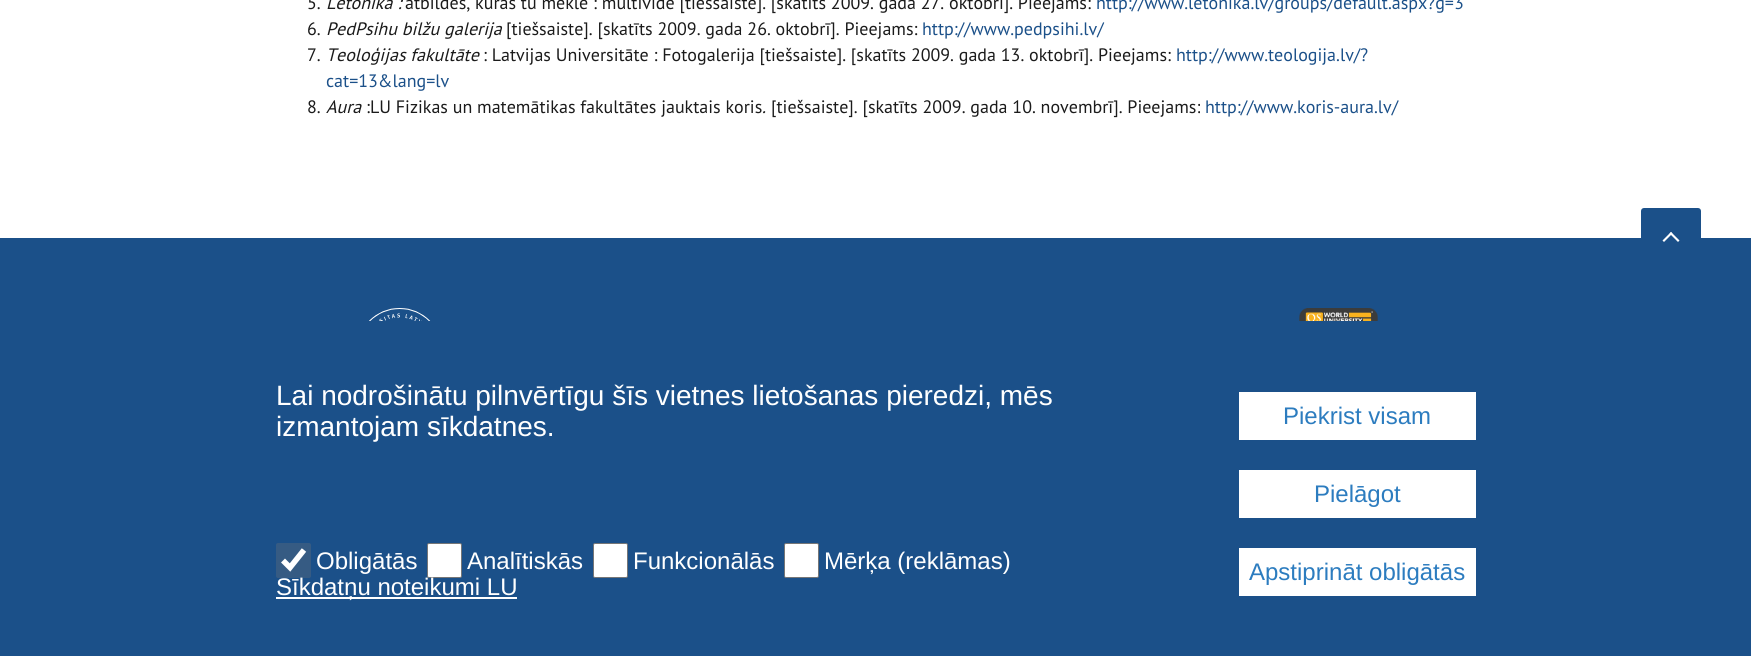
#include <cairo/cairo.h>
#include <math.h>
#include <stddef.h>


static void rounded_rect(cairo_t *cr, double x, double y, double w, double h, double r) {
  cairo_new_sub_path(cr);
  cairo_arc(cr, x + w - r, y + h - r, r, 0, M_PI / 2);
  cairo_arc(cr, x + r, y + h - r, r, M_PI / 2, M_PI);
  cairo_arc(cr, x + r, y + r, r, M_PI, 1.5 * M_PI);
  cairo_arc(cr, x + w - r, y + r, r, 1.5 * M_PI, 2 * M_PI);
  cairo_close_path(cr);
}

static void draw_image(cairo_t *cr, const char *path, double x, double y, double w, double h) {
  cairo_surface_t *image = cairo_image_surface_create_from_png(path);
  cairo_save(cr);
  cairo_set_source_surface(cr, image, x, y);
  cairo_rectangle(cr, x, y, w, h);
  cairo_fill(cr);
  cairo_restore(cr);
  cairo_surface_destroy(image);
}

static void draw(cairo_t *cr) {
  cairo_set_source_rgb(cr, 1, 1, 1);
  cairo_paint(cr);
  cairo_set_source_rgb(cr, 27 / 255.0, 80 / 255.0, 137 / 255.0);
  cairo_rectangle(cr, 0, 238, 1751, 418);
  cairo_fill(cr);
  rounded_rect(cr, 1641, 208, 60, 60, 3);
  cairo_fill(cr);
  cairo_set_source_rgb(cr, 1, 1, 1);
  cairo_new_path(cr);
  cairo_move_to(cr, 1664, 242);
  cairo_line_to(cr, 1662.5, 240.5);
  cairo_line_to(cr, 1671, 232);
  cairo_line_to(cr, 1672.5, 233.5);
  cairo_close_path(cr);
  cairo_fill(cr);
  cairo_new_path(cr);
  cairo_move_to(cr, 1678, 242);
  cairo_line_to(cr, 1669.5, 233.5);
  cairo_line_to(cr, 1671, 232);
  cairo_line_to(cr, 1679.5, 240.5);
  cairo_close_path(cr);
  cairo_fill(cr);
  draw_image(cr, "images/1.png", 369, 308, 62, 13);
  draw_image(cr, "images/2.png", 1299, 308, 79, 13);
  cairo_set_source_rgb(cr, 54 / 255.0, 91 / 255.0, 131 / 255.0);
  rounded_rect(cr, 276, 543, 35, 35, 2);
  cairo_fill(cr);
  cairo_new_path(cr);
  cairo_move_to(cr, 283, 560.5);
  cairo_line_to(cr, 290, 567.5);
  cairo_line_to(cr, 304, 550);
  cairo_set_source_rgb(cr, 1, 1, 1);
  cairo_set_line_width(cr, 5.6);
  cairo_stroke(cr);
  rounded_rect(cr, 427.5, 543.5, 34, 34, 1.5);
  cairo_fill_preserve(cr);
  cairo_set_source_rgb(cr, 118 / 255.0, 118 / 255.0, 118 / 255.0);
  cairo_set_line_width(cr, 1);
  cairo_stroke(cr);
  cairo_set_source_rgb(cr, 1, 1, 1);
  rounded_rect(cr, 593.5, 543.5, 34, 34, 1.5);
  cairo_fill_preserve(cr);
  cairo_set_source_rgb(cr, 118 / 255.0, 118 / 255.0, 118 / 255.0);
  cairo_stroke(cr);
  cairo_set_source_rgb(cr, 1, 1, 1);
  rounded_rect(cr, 784.5, 543.5, 34, 34, 1.5);
  cairo_fill_preserve(cr);
  cairo_set_source_rgb(cr, 118 / 255.0, 118 / 255.0, 118 / 255.0);
  cairo_stroke(cr);
  cairo_set_source_rgb(cr, 1, 1, 1);
  cairo_rectangle(cr, 276, 597, 241, 2);
  cairo_fill(cr);
  cairo_rectangle(cr, 1239, 392, 237, 48);
  cairo_fill(cr);
  cairo_rectangle(cr, 1239, 470, 237, 48);
  cairo_fill(cr);
  cairo_rectangle(cr, 1239, 548, 237, 48);
  cairo_fill(cr);
  cairo_select_font_face(cr, "PT Sans", CAIRO_FONT_SLANT_NORMAL, CAIRO_FONT_WEIGHT_NORMAL);
  cairo_set_font_size(cr, 18);
  cairo_set_source_rgb(cr, 27 / 255.0, 27 / 255.0, 27 / 255.0);
  cairo_move_to(cr, 307, 9);
  cairo_show_text(cr, "5.");
  cairo_select_font_face(cr, "PT Sans", CAIRO_FONT_SLANT_ITALIC, CAIRO_FONT_WEIGHT_NORMAL);
  cairo_move_to(cr, 326, 9);
  cairo_show_text(cr, "Letonika :");
  cairo_select_font_face(cr, "PT Sans", CAIRO_FONT_SLANT_NORMAL, CAIRO_FONT_WEIGHT_NORMAL);
  cairo_move_to(cr, 405, 9);
  cairo_show_text(cr, "atbildes, kuras tu meklē : multivide [tiešsaiste]. [skatīts 2009. gada 27. oktobrī]. Pieejams:");
  cairo_set_source_rgb(cr, 27 / 255.0, 80 / 255.0, 137 / 255.0);
  cairo_move_to(cr, 1096, 9);
  cairo_show_text(cr, "http://www.letonika.lv/groups/default.aspx?g=3");
  cairo_set_source_rgb(cr, 27 / 255.0, 27 / 255.0, 27 / 255.0);
  cairo_move_to(cr, 307, 35);
  cairo_show_text(cr, "6.");
  cairo_select_font_face(cr, "PT Sans", CAIRO_FONT_SLANT_ITALIC, CAIRO_FONT_WEIGHT_NORMAL);
  cairo_move_to(cr, 326, 35);
  cairo_show_text(cr, "PedPsihu bilžu galerija");
  cairo_select_font_face(cr, "PT Sans", CAIRO_FONT_SLANT_NORMAL, CAIRO_FONT_WEIGHT_NORMAL);
  cairo_move_to(cr, 506, 35);
  cairo_show_text(cr, "[tiešsaiste]. [skatīts 2009. gada 26. oktobrī]. Pieejams:");
  cairo_set_source_rgb(cr, 27 / 255.0, 80 / 255.0, 137 / 255.0);
  cairo_move_to(cr, 922, 35);
  cairo_show_text(cr, "http://www.pedpsihi.lv/");
  cairo_set_source_rgb(cr, 27 / 255.0, 27 / 255.0, 27 / 255.0);
  cairo_move_to(cr, 307, 61);
  cairo_show_text(cr, "7.");
  cairo_select_font_face(cr, "PT Sans", CAIRO_FONT_SLANT_ITALIC, CAIRO_FONT_WEIGHT_NORMAL);
  cairo_move_to(cr, 326, 61);
  cairo_show_text(cr, "Teoloģijas fakultāte");
  cairo_select_font_face(cr, "PT Sans", CAIRO_FONT_SLANT_NORMAL, CAIRO_FONT_WEIGHT_NORMAL);
  cairo_move_to(cr, 483, 61);
  cairo_show_text(cr, ": Latvijas Universitāte : Fotogalerija [tiešsaiste]. [skatīts 2009. gada 13. oktobrī]. Pieejams:");
  cairo_set_source_rgb(cr, 27 / 255.0, 80 / 255.0, 137 / 255.0);
  cairo_move_to(cr, 1176, 61);
  cairo_show_text(cr, "http://www.teologija.lv/?");
  cairo_move_to(cr, 326, 87);
  cairo_show_text(cr, "cat=13&lang=lv");
  cairo_set_source_rgb(cr, 27 / 255.0, 27 / 255.0, 27 / 255.0);
  cairo_move_to(cr, 307, 113);
  cairo_show_text(cr, "8.");
  cairo_select_font_face(cr, "PT Sans", CAIRO_FONT_SLANT_ITALIC, CAIRO_FONT_WEIGHT_NORMAL);
  cairo_move_to(cr, 326, 113);
  cairo_show_text(cr, "Aura");
  cairo_select_font_face(cr, "PT Sans", CAIRO_FONT_SLANT_NORMAL, CAIRO_FONT_WEIGHT_NORMAL);
  cairo_move_to(cr, 366, 113);
  cairo_show_text(cr, ":LU Fizikas un matemātikas fakultātes jauktais koris");
  cairo_select_font_face(cr, "PT Sans", CAIRO_FONT_SLANT_ITALIC, CAIRO_FONT_WEIGHT_NORMAL);
  cairo_move_to(cr, 762, 113);
  cairo_show_text(cr, ".");
  cairo_select_font_face(cr, "PT Sans", CAIRO_FONT_SLANT_NORMAL, CAIRO_FONT_WEIGHT_NORMAL);
  cairo_move_to(cr, 771, 113);
  cairo_show_text(cr, "[tiešsaiste]. [skatīts 2009. gada 10. novembrī]. Pieejams:");
  cairo_set_source_rgb(cr, 27 / 255.0, 80 / 255.0, 137 / 255.0);
  cairo_move_to(cr, 1205, 113);
  cairo_show_text(cr, "http://www.koris-aura.lv/");
  cairo_select_font_face(cr, "Liberation Sans", CAIRO_FONT_SLANT_NORMAL, CAIRO_FONT_WEIGHT_NORMAL);
  cairo_set_font_size(cr, 28);
  cairo_set_source_rgb(cr, 1, 1, 1);
  cairo_move_to(cr, 276, 405);
  cairo_show_text(cr, "Lai nodrošinātu pilnvērtīgu šīs vietnes lietošanas pieredzi, mēs");
  cairo_move_to(cr, 276, 436);
  cairo_show_text(cr, "izmantojam sīkdatnes.");
  cairo_set_font_size(cr, 24);
  cairo_move_to(cr, 316, 569);
  cairo_show_text(cr, "Obligātās");
  cairo_move_to(cr, 467, 569);
  cairo_show_text(cr, "Analītiskās");
  cairo_move_to(cr, 633, 569);
  cairo_show_text(cr, "Funkcionālās");
  cairo_move_to(cr, 824, 569);
  cairo_show_text(cr, "Mērķa (reklāmas)");
  cairo_move_to(cr, 276, 595);
  cairo_show_text(cr, "Sīkdatņu noteikumi LU");
  cairo_set_source_rgb(cr, 44 / 255.0, 124 / 255.0, 191 / 255.0);
  cairo_move_to(cr, 1283, 424);
  cairo_show_text(cr, "Piekrist visam");
  cairo_move_to(cr, 1314, 502);
  cairo_show_text(cr, "Pielāgot");
  cairo_move_to(cr, 1249, 580);
  cairo_show_text(cr, "Apstiprināt obligātās");
}

int main(void) {
  cairo_surface_t *surface = cairo_image_surface_create(CAIRO_FORMAT_RGB24, 1751, 656);
  cairo_t *cr = cairo_create(surface);
  cairo_font_options_t *options = cairo_font_options_create();
  cairo_font_options_set_hint_metrics(options, CAIRO_HINT_METRICS_OFF);
  cairo_font_options_set_hint_style(options, CAIRO_HINT_STYLE_NONE);
  cairo_set_font_options(cr, options);
  cairo_set_miter_limit(cr, 4);
  draw(cr);
  cairo_surface_write_to_png(surface, "out.png");
  cairo_font_options_destroy(options);
  cairo_destroy(cr);
  cairo_surface_destroy(surface);
  return 0;
}
